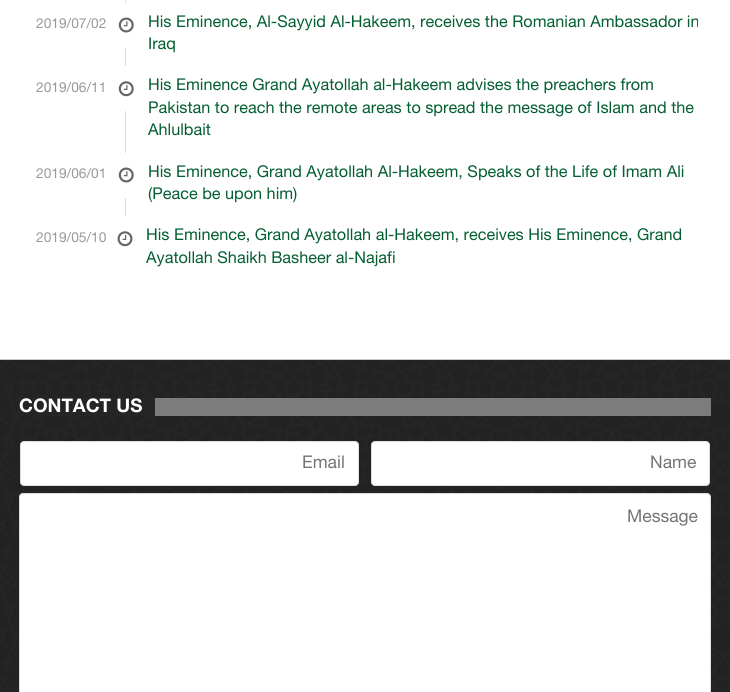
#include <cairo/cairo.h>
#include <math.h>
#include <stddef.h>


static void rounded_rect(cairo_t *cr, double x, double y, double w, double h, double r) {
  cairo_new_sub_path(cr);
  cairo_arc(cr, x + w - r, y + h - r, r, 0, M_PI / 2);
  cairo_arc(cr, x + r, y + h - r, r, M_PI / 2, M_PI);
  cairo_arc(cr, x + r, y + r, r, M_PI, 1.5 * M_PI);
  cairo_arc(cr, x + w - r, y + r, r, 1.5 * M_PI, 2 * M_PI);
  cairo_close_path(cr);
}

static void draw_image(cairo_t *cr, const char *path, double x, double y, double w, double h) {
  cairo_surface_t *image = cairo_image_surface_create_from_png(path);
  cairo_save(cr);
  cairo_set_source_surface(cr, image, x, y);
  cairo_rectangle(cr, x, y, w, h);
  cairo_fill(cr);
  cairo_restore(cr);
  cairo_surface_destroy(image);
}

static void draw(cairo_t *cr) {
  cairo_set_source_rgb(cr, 1, 1, 1);
  cairo_paint(cr);
  cairo_set_source_rgb(cr, 221 / 255.0, 221 / 255.0, 221 / 255.0);
  cairo_rectangle(cr, 125, 0, 1, 11);
  cairo_fill(cr);
  cairo_rectangle(cr, 125, 48, 1, 18);
  cairo_fill(cr);
  cairo_set_source_rgb(cr, 1, 1, 1);
  cairo_rectangle(cr, 125, 3, 1, 8);
  cairo_fill(cr);
  draw_image(cr, "images/1.png", 118, 17, 16, 16);
  cairo_set_source_rgb(cr, 221 / 255.0, 221 / 255.0, 221 / 255.0);
  cairo_rectangle(cr, 125, 111, 1, 50);
  cairo_fill(cr);
  draw_image(cr, "images/2.png", 118, 81, 16, 16);
  cairo_rectangle(cr, 125, 198, 1, 18);
  cairo_fill(cr);
  cairo_set_source_rgb(cr, 1, 1, 1);
  cairo_rectangle(cr, 125, 153, 1, 8);
  cairo_fill(cr);
  draw_image(cr, "images/1.png", 118, 167, 16, 16);
  draw_image(cr, "images/3.png", 117, 231, 16, 16);
  draw_image(cr, "images/4.png", 0, 359, 730, 333);
  cairo_set_source_rgb(cr, 124 / 255.0, 124 / 255.0, 124 / 255.0);
  cairo_rectangle(cr, 155, 398, 556, 18);
  cairo_fill(cr);
  cairo_set_source_rgb(cr, 37 / 255.0, 37 / 255.0, 37 / 255.0);
  cairo_rectangle(cr, 19, 398, 136, 18);
  cairo_fill(cr);
  cairo_set_source_rgb(cr, 1, 1, 1);
  rounded_rect(cr, 20.5, 441.5, 338, 44, 3.5);
  cairo_fill_preserve(cr);
  cairo_set_source_rgb(cr, 221 / 255.0, 221 / 255.0, 221 / 255.0);
  cairo_set_line_width(cr, 1);
  cairo_stroke(cr);
  cairo_set_source_rgb(cr, 1, 1, 1);
  rounded_rect(cr, 371.5, 441.5, 338, 44, 3.5);
  cairo_fill_preserve(cr);
  cairo_set_source_rgb(cr, 221 / 255.0, 221 / 255.0, 221 / 255.0);
  cairo_stroke(cr);
  cairo_set_source_rgb(cr, 1, 1, 1);
  rounded_rect(cr, 19.5, 493.5, 691, 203, 3.5);
  cairo_fill_preserve(cr);
  cairo_set_source_rgb(cr, 221 / 255.0, 221 / 255.0, 221 / 255.0);
  cairo_stroke(cr);
  cairo_select_font_face(cr, "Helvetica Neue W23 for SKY", CAIRO_FONT_SLANT_NORMAL, CAIRO_FONT_WEIGHT_NORMAL);
  cairo_set_font_size(cr, 13.75);
  cairo_set_source_rgb(cr, 153 / 255.0, 153 / 255.0, 153 / 255.0);
  cairo_move_to(cr, 36, 28);
  cairo_show_text(cr, "2019/07/02");
  cairo_set_font_size(cr, 16.25);
  cairo_set_source_rgb(cr, 5 / 255.0, 95 / 255.0, 50 / 255.0);
  cairo_move_to(cr, 148, 27);
  cairo_show_text(cr, "His Eminence, Al-Sayyid Al-Hakeem, receives the Romanian Ambassador in");
  cairo_move_to(cr, 148, 49);
  cairo_show_text(cr, "Iraq");
  cairo_set_font_size(cr, 13.75);
  cairo_set_source_rgb(cr, 153 / 255.0, 153 / 255.0, 153 / 255.0);
  cairo_move_to(cr, 36, 92);
  cairo_show_text(cr, "2019/06/11");
  cairo_set_font_size(cr, 16.25);
  cairo_set_source_rgb(cr, 5 / 255.0, 95 / 255.0, 50 / 255.0);
  cairo_move_to(cr, 148, 90);
  cairo_show_text(cr, "His Eminence Grand Ayatollah al-Hakeem advises the preachers from");
  cairo_move_to(cr, 148, 113);
  cairo_show_text(cr, "Pakistan to reach the remote areas to spread the message of Islam and the");
  cairo_move_to(cr, 148, 135);
  cairo_show_text(cr, "Ahlulbait");
  cairo_set_font_size(cr, 13.75);
  cairo_set_source_rgb(cr, 153 / 255.0, 153 / 255.0, 153 / 255.0);
  cairo_move_to(cr, 36, 178);
  cairo_show_text(cr, "2019/06/01");
  cairo_set_font_size(cr, 16.25);
  cairo_set_source_rgb(cr, 5 / 255.0, 95 / 255.0, 50 / 255.0);
  cairo_move_to(cr, 148, 177);
  cairo_show_text(cr, "His Eminence, Grand Ayatollah Al-Hakeem, Speaks of the Life of Imam Ali");
  cairo_move_to(cr, 148, 199);
  cairo_show_text(cr, "(Peace be upon him)");
  cairo_set_font_size(cr, 13.75);
  cairo_set_source_rgb(cr, 153 / 255.0, 153 / 255.0, 153 / 255.0);
  cairo_move_to(cr, 36, 242);
  cairo_show_text(cr, "2019/05/10");
  cairo_set_font_size(cr, 16.25);
  cairo_set_source_rgb(cr, 5 / 255.0, 95 / 255.0, 50 / 255.0);
  cairo_move_to(cr, 146, 240);
  cairo_show_text(cr, "His Eminence, Grand Ayatollah al-Hakeem, receives His Eminence, Grand");
  cairo_move_to(cr, 146, 263);
  cairo_show_text(cr, "Ayatollah Shaikh Basheer al-Najafi");
  cairo_select_font_face(cr, "Helvetica Neue W23 for SKY", CAIRO_FONT_SLANT_NORMAL, CAIRO_FONT_WEIGHT_BOLD);
  cairo_set_font_size(cr, 18.75);
  cairo_set_source_rgb(cr, 1, 1, 1);
  cairo_move_to(cr, 19, 412);
  cairo_show_text(cr, "CONTACT US");
  cairo_select_font_face(cr, "Helvetica Neue W23 for SKY", CAIRO_FONT_SLANT_NORMAL, CAIRO_FONT_WEIGHT_NORMAL);
  cairo_set_font_size(cr, 17.5);
  cairo_set_source_rgb(cr, 117 / 255.0, 117 / 255.0, 117 / 255.0);
  cairo_move_to(cr, 302, 468);
  cairo_show_text(cr, "Email");
  cairo_move_to(cr, 650, 468);
  cairo_show_text(cr, "Name");
  cairo_move_to(cr, 627, 522);
  cairo_show_text(cr, "Message");
}

int main(void) {
  cairo_surface_t *surface = cairo_image_surface_create(CAIRO_FORMAT_RGB24, 730, 692);
  cairo_t *cr = cairo_create(surface);
  cairo_font_options_t *options = cairo_font_options_create();
  cairo_font_options_set_hint_metrics(options, CAIRO_HINT_METRICS_OFF);
  cairo_font_options_set_hint_style(options, CAIRO_HINT_STYLE_NONE);
  cairo_set_font_options(cr, options);
  cairo_set_miter_limit(cr, 4);
  draw(cr);
  cairo_surface_write_to_png(surface, "out.png");
  cairo_font_options_destroy(options);
  cairo_destroy(cr);
  cairo_surface_destroy(surface);
  return 0;
}
